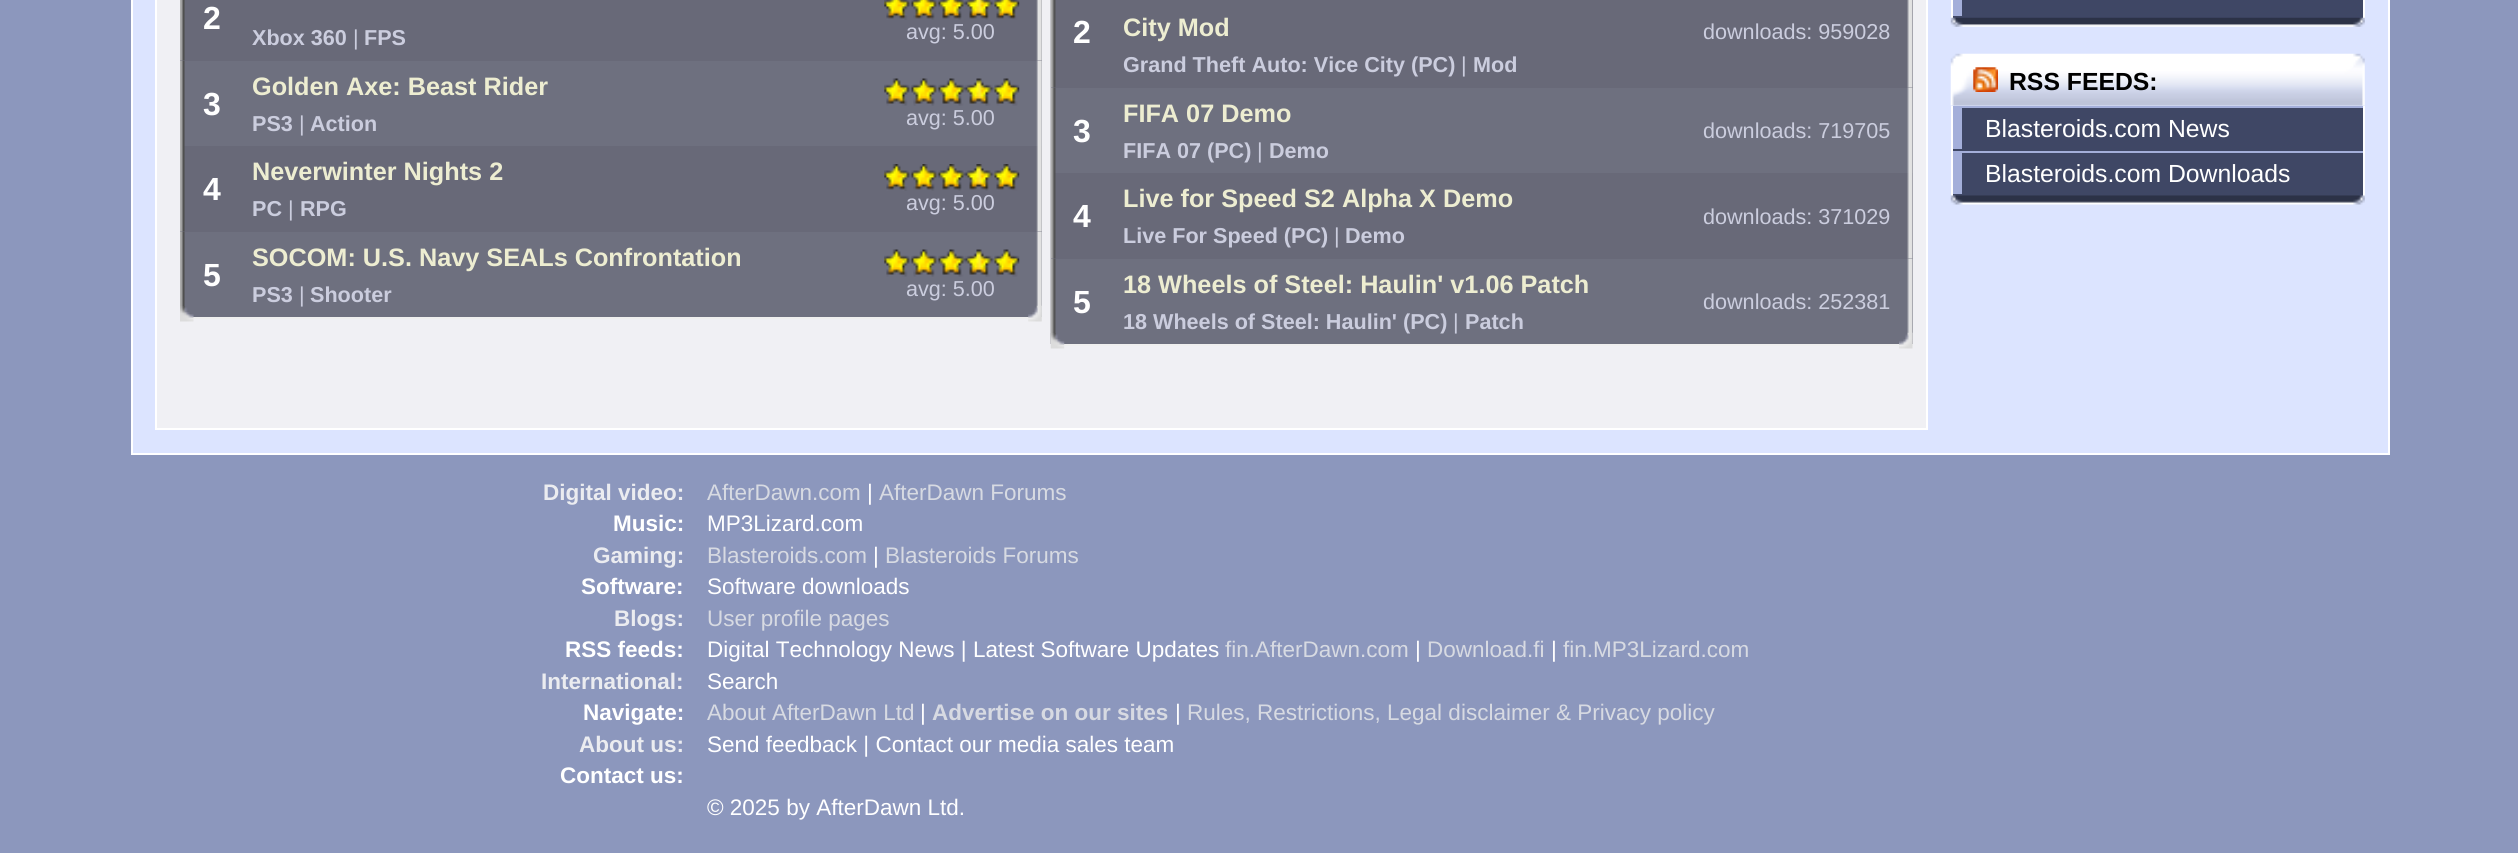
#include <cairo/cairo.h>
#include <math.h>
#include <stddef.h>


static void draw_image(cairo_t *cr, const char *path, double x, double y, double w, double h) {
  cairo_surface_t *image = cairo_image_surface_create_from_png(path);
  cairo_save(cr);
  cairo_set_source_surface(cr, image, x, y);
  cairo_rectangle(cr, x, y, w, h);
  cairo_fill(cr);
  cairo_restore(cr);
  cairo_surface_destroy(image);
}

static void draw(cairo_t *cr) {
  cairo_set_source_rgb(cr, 140 / 255.0, 151 / 255.0, 189 / 255.0);
  cairo_paint(cr);
  cairo_set_source_rgb(cr, 220 / 255.0, 228 / 255.0, 1);
  cairo_rectangle(cr, 132, -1, 2257, 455);
  cairo_fill_preserve(cr);
  cairo_set_source_rgb(cr, 1, 1, 1);
  cairo_stroke(cr);
  cairo_set_source_rgb(cr, 240 / 255.0, 240 / 255.0, 244 / 255.0);
  cairo_rectangle(cr, 156, -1, 1771, 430);
  cairo_fill_preserve(cr);
  cairo_set_source_rgb(cr, 1, 1, 1);
  cairo_stroke(cr);
  cairo_set_source_rgb(cr, 104 / 255.0, 105 / 255.0, 120 / 255.0);
  cairo_rectangle(cr, 180, 0, 862, 61);
  cairo_fill(cr);
  draw_image(cr, "images/1.png", 180, 0, 5, 61);
  draw_image(cr, "images/2.png", 1036, 0, 6, 61);
  draw_image(cr, "images/3.png", 884, 0, 136, 20);
  cairo_set_source_rgb(cr, 110 / 255.0, 112 / 255.0, 127 / 255.0);
  cairo_rectangle(cr, 185, 61, 857, 85);
  cairo_fill(cr);
  draw_image(cr, "images/4.png", 180, 60, 5, 86);
  draw_image(cr, "images/5.png", 1036, 60, 6, 86);
  draw_image(cr, "images/6.png", 884, 78, 136, 28);
  cairo_set_source_rgb(cr, 104 / 255.0, 105 / 255.0, 120 / 255.0);
  cairo_rectangle(cr, 180, 146, 862, 86);
  cairo_fill(cr);
  draw_image(cr, "images/7.png", 180, 146, 5, 86);
  draw_image(cr, "images/8.png", 1036, 146, 6, 86);
  draw_image(cr, "images/9.png", 884, 164, 136, 27);
  cairo_set_source_rgb(cr, 110 / 255.0, 112 / 255.0, 127 / 255.0);
  cairo_rectangle(cr, 185, 232, 857, 85);
  cairo_fill(cr);
  draw_image(cr, "images/10.png", 180, 231, 5, 78);
  draw_image(cr, "images/5.png", 1036, 231, 6, 86);
  draw_image(cr, "images/6.png", 884, 249, 136, 28);
  cairo_set_source_rgb(cr, 239 / 255.0, 239 / 255.0, 239 / 255.0);
  cairo_rectangle(cr, 193, 317, 849, 2);
  cairo_fill(cr);
  draw_image(cr, "images/11.png", 180, 306, 14, 16);
  draw_image(cr, "images/12.png", 1028, 305, 14, 17);
  cairo_set_source_rgb(cr, 104 / 255.0, 105 / 255.0, 120 / 255.0);
  cairo_rectangle(cr, 1051, 0, 862, 88);
  cairo_fill(cr);
  draw_image(cr, "images/13.png", 1050, 0, 6, 88);
  draw_image(cr, "images/14.png", 1907, 0, 6, 88);
  cairo_set_source_rgb(cr, 110 / 255.0, 112 / 255.0, 127 / 255.0);
  cairo_rectangle(cr, 1056, 88, 857, 85);
  cairo_fill(cr);
  draw_image(cr, "images/15.png", 1050, 87, 6, 86);
  draw_image(cr, "images/16.png", 1907, 87, 6, 86);
  cairo_set_source_rgb(cr, 104 / 255.0, 105 / 255.0, 120 / 255.0);
  cairo_rectangle(cr, 1051, 173, 862, 86);
  cairo_fill(cr);
  draw_image(cr, "images/17.png", 1050, 173, 6, 86);
  draw_image(cr, "images/18.png", 1907, 173, 6, 86);
  cairo_set_source_rgb(cr, 110 / 255.0, 112 / 255.0, 127 / 255.0);
  cairo_rectangle(cr, 1056, 259, 857, 85);
  cairo_fill(cr);
  draw_image(cr, "images/15.png", 1050, 258, 6, 86);
  draw_image(cr, "images/16.png", 1907, 258, 6, 86);
  cairo_set_source_rgb(cr, 239 / 255.0, 239 / 255.0, 239 / 255.0);
  cairo_rectangle(cr, 1064, 344, 849, 2);
  cairo_fill(cr);
  draw_image(cr, "images/19.png", 1050, 333, 15, 16);
  draw_image(cr, "images/20.png", 1899, 332, 14, 17);
  cairo_set_source_rgb(cr, 63 / 255.0, 71 / 255.0, 101 / 255.0);
  cairo_rectangle(cr, 1953, 0, 410, 18);
  cairo_fill(cr);
  cairo_set_source_rgb(cr, 1, 1, 1);
  cairo_rectangle(cr, 2363, 0, 2, 18);
  cairo_fill(cr);
  cairo_rectangle(cr, 1951, 0, 2, 18);
  cairo_fill(cr);
  cairo_set_source_rgb(cr, 164 / 255.0, 175 / 255.0, 218 / 255.0);
  cairo_rectangle(cr, 1953, 0, 9, 16);
  cairo_fill(cr);
  draw_image(cr, "images/21.png", 1950, 17, 415, 10);
  draw_image(cr, "images/22.png", 1950, 53, 415, 53);
  draw_image(cr, "images/23.png", 1973, 67, 25, 25);
  cairo_set_source_rgb(cr, 63 / 255.0, 71 / 255.0, 101 / 255.0);
  cairo_rectangle(cr, 1953, 108, 410, 88);
  cairo_fill(cr);
  cairo_set_source_rgb(cr, 1, 1, 1);
  cairo_rectangle(cr, 2363, 106, 2, 90);
  cairo_fill(cr);
  cairo_rectangle(cr, 1951, 106, 2, 90);
  cairo_fill(cr);
  cairo_set_source_rgb(cr, 164 / 255.0, 175 / 255.0, 218 / 255.0);
  cairo_rectangle(cr, 1962, 106, 401, 2);
  cairo_fill(cr);
  cairo_rectangle(cr, 1953, 106, 9, 43);
  cairo_fill(cr);
  cairo_rectangle(cr, 1962, 151, 401, 2);
  cairo_fill(cr);
  cairo_rectangle(cr, 1953, 151, 9, 43);
  cairo_fill(cr);
  draw_image(cr, "images/24.png", 1950, 195, 415, 10);
  cairo_select_font_face(cr, "Liberation Sans", CAIRO_FONT_SLANT_NORMAL, CAIRO_FONT_WEIGHT_BOLD);
  cairo_set_font_size(cr, 32);
  cairo_set_source_rgb(cr, 1, 1, 1);
  cairo_move_to(cr, 203, 29);
  cairo_show_text(cr, "2");
  cairo_set_font_size(cr, 21.6);
  cairo_set_source_rgb(cr, 203 / 255.0, 205 / 255.0, 222 / 255.0);
  cairo_move_to(cr, 252, 45);
  cairo_show_text(cr, "Xbox 360");
  cairo_select_font_face(cr, "Liberation Sans", CAIRO_FONT_SLANT_NORMAL, CAIRO_FONT_WEIGHT_NORMAL);
  cairo_move_to(cr, 353, 45);
  cairo_show_text(cr, "|");
  cairo_select_font_face(cr, "Liberation Sans", CAIRO_FONT_SLANT_NORMAL, CAIRO_FONT_WEIGHT_BOLD);
  cairo_move_to(cr, 364, 45);
  cairo_show_text(cr, "FPS");
  cairo_select_font_face(cr, "Liberation Sans", CAIRO_FONT_SLANT_NORMAL, CAIRO_FONT_WEIGHT_NORMAL);
  cairo_move_to(cr, 906, 39);
  cairo_show_text(cr, "avg: 5.00");
  cairo_select_font_face(cr, "Liberation Sans", CAIRO_FONT_SLANT_NORMAL, CAIRO_FONT_WEIGHT_BOLD);
  cairo_set_font_size(cr, 32);
  cairo_set_source_rgb(cr, 1, 1, 1);
  cairo_move_to(cr, 203, 115);
  cairo_show_text(cr, "3");
  cairo_set_font_size(cr, 25.25);
  cairo_set_source_rgb(cr, 237 / 255.0, 237 / 255.0, 209 / 255.0);
  cairo_move_to(cr, 252, 95);
  cairo_show_text(cr, "Golden Axe: Beast Rider");
  cairo_set_font_size(cr, 21.6);
  cairo_set_source_rgb(cr, 203 / 255.0, 205 / 255.0, 222 / 255.0);
  cairo_move_to(cr, 252, 131);
  cairo_show_text(cr, "PS3");
  cairo_select_font_face(cr, "Liberation Sans", CAIRO_FONT_SLANT_NORMAL, CAIRO_FONT_WEIGHT_NORMAL);
  cairo_move_to(cr, 299, 131);
  cairo_show_text(cr, "|");
  cairo_select_font_face(cr, "Liberation Sans", CAIRO_FONT_SLANT_NORMAL, CAIRO_FONT_WEIGHT_BOLD);
  cairo_move_to(cr, 310, 131);
  cairo_show_text(cr, "Action");
  cairo_select_font_face(cr, "Liberation Sans", CAIRO_FONT_SLANT_NORMAL, CAIRO_FONT_WEIGHT_NORMAL);
  cairo_move_to(cr, 906, 125);
  cairo_show_text(cr, "avg: 5.00");
  cairo_select_font_face(cr, "Liberation Sans", CAIRO_FONT_SLANT_NORMAL, CAIRO_FONT_WEIGHT_BOLD);
  cairo_set_font_size(cr, 32);
  cairo_set_source_rgb(cr, 1, 1, 1);
  cairo_move_to(cr, 203, 200);
  cairo_show_text(cr, "4");
  cairo_set_font_size(cr, 25.25);
  cairo_set_source_rgb(cr, 237 / 255.0, 237 / 255.0, 209 / 255.0);
  cairo_move_to(cr, 252, 180);
  cairo_show_text(cr, "Neverwinter Nights 2");
  cairo_set_font_size(cr, 21.6);
  cairo_set_source_rgb(cr, 203 / 255.0, 205 / 255.0, 222 / 255.0);
  cairo_move_to(cr, 252, 216);
  cairo_show_text(cr, "PC");
  cairo_select_font_face(cr, "Liberation Sans", CAIRO_FONT_SLANT_NORMAL, CAIRO_FONT_WEIGHT_NORMAL);
  cairo_move_to(cr, 288, 216);
  cairo_show_text(cr, "|");
  cairo_select_font_face(cr, "Liberation Sans", CAIRO_FONT_SLANT_NORMAL, CAIRO_FONT_WEIGHT_BOLD);
  cairo_move_to(cr, 300, 216);
  cairo_show_text(cr, "RPG");
  cairo_select_font_face(cr, "Liberation Sans", CAIRO_FONT_SLANT_NORMAL, CAIRO_FONT_WEIGHT_NORMAL);
  cairo_move_to(cr, 906, 210);
  cairo_show_text(cr, "avg: 5.00");
  cairo_select_font_face(cr, "Liberation Sans", CAIRO_FONT_SLANT_NORMAL, CAIRO_FONT_WEIGHT_BOLD);
  cairo_set_font_size(cr, 32);
  cairo_set_source_rgb(cr, 1, 1, 1);
  cairo_move_to(cr, 203, 286);
  cairo_show_text(cr, "5");
  cairo_set_font_size(cr, 25.25);
  cairo_set_source_rgb(cr, 237 / 255.0, 237 / 255.0, 209 / 255.0);
  cairo_move_to(cr, 252, 266);
  cairo_show_text(cr, "SOCOM: U.S. Navy SEALs Confrontation");
  cairo_set_font_size(cr, 21.6);
  cairo_set_source_rgb(cr, 203 / 255.0, 205 / 255.0, 222 / 255.0);
  cairo_move_to(cr, 252, 302);
  cairo_show_text(cr, "PS3");
  cairo_select_font_face(cr, "Liberation Sans", CAIRO_FONT_SLANT_NORMAL, CAIRO_FONT_WEIGHT_NORMAL);
  cairo_move_to(cr, 299, 302);
  cairo_show_text(cr, "|");
  cairo_select_font_face(cr, "Liberation Sans", CAIRO_FONT_SLANT_NORMAL, CAIRO_FONT_WEIGHT_BOLD);
  cairo_move_to(cr, 310, 302);
  cairo_show_text(cr, "Shooter");
  cairo_select_font_face(cr, "Liberation Sans", CAIRO_FONT_SLANT_NORMAL, CAIRO_FONT_WEIGHT_NORMAL);
  cairo_move_to(cr, 906, 296);
  cairo_show_text(cr, "avg: 5.00");
  cairo_select_font_face(cr, "Liberation Sans", CAIRO_FONT_SLANT_NORMAL, CAIRO_FONT_WEIGHT_BOLD);
  cairo_set_font_size(cr, 32);
  cairo_set_source_rgb(cr, 1, 1, 1);
  cairo_move_to(cr, 1073, 43);
  cairo_show_text(cr, "2");
  cairo_set_font_size(cr, 25.25);
  cairo_set_source_rgb(cr, 237 / 255.0, 237 / 255.0, 209 / 255.0);
  cairo_move_to(cr, 1123, 36);
  cairo_show_text(cr, "City Mod");
  cairo_set_font_size(cr, 21.6);
  cairo_set_source_rgb(cr, 203 / 255.0, 205 / 255.0, 222 / 255.0);
  cairo_move_to(cr, 1123, 72);
  cairo_show_text(cr, "Grand Theft Auto: Vice City (PC)");
  cairo_select_font_face(cr, "Liberation Sans", CAIRO_FONT_SLANT_NORMAL, CAIRO_FONT_WEIGHT_NORMAL);
  cairo_move_to(cr, 1461, 72);
  cairo_show_text(cr, "|");
  cairo_select_font_face(cr, "Liberation Sans", CAIRO_FONT_SLANT_NORMAL, CAIRO_FONT_WEIGHT_BOLD);
  cairo_move_to(cr, 1473, 72);
  cairo_show_text(cr, "Mod");
  cairo_select_font_face(cr, "Liberation Sans", CAIRO_FONT_SLANT_NORMAL, CAIRO_FONT_WEIGHT_NORMAL);
  cairo_move_to(cr, 1703, 39);
  cairo_show_text(cr, "downloads: 959028");
  cairo_select_font_face(cr, "Liberation Sans", CAIRO_FONT_SLANT_NORMAL, CAIRO_FONT_WEIGHT_BOLD);
  cairo_set_font_size(cr, 32);
  cairo_set_source_rgb(cr, 1, 1, 1);
  cairo_move_to(cr, 1073, 142);
  cairo_show_text(cr, "3");
  cairo_set_font_size(cr, 25.25);
  cairo_set_source_rgb(cr, 237 / 255.0, 237 / 255.0, 209 / 255.0);
  cairo_move_to(cr, 1123, 122);
  cairo_show_text(cr, "FIFA 07 Demo");
  cairo_set_font_size(cr, 21.6);
  cairo_set_source_rgb(cr, 203 / 255.0, 205 / 255.0, 222 / 255.0);
  cairo_move_to(cr, 1123, 158);
  cairo_show_text(cr, "FIFA 07 (PC)");
  cairo_select_font_face(cr, "Liberation Sans", CAIRO_FONT_SLANT_NORMAL, CAIRO_FONT_WEIGHT_NORMAL);
  cairo_move_to(cr, 1257, 158);
  cairo_show_text(cr, "|");
  cairo_select_font_face(cr, "Liberation Sans", CAIRO_FONT_SLANT_NORMAL, CAIRO_FONT_WEIGHT_BOLD);
  cairo_move_to(cr, 1269, 158);
  cairo_show_text(cr, "Demo");
  cairo_select_font_face(cr, "Liberation Sans", CAIRO_FONT_SLANT_NORMAL, CAIRO_FONT_WEIGHT_NORMAL);
  cairo_move_to(cr, 1703, 138);
  cairo_show_text(cr, "downloads: 719705");
  cairo_select_font_face(cr, "Liberation Sans", CAIRO_FONT_SLANT_NORMAL, CAIRO_FONT_WEIGHT_BOLD);
  cairo_set_font_size(cr, 32);
  cairo_set_source_rgb(cr, 1, 1, 1);
  cairo_move_to(cr, 1073, 227);
  cairo_show_text(cr, "4");
  cairo_set_font_size(cr, 25.25);
  cairo_set_source_rgb(cr, 237 / 255.0, 237 / 255.0, 209 / 255.0);
  cairo_move_to(cr, 1123, 207);
  cairo_show_text(cr, "Live for Speed S2 Alpha X Demo");
  cairo_set_font_size(cr, 21.6);
  cairo_set_source_rgb(cr, 203 / 255.0, 205 / 255.0, 222 / 255.0);
  cairo_move_to(cr, 1123, 243);
  cairo_show_text(cr, "Live For Speed (PC)");
  cairo_select_font_face(cr, "Liberation Sans", CAIRO_FONT_SLANT_NORMAL, CAIRO_FONT_WEIGHT_NORMAL);
  cairo_move_to(cr, 1334, 243);
  cairo_show_text(cr, "|");
  cairo_select_font_face(cr, "Liberation Sans", CAIRO_FONT_SLANT_NORMAL, CAIRO_FONT_WEIGHT_BOLD);
  cairo_move_to(cr, 1345, 243);
  cairo_show_text(cr, "Demo");
  cairo_select_font_face(cr, "Liberation Sans", CAIRO_FONT_SLANT_NORMAL, CAIRO_FONT_WEIGHT_NORMAL);
  cairo_move_to(cr, 1703, 224);
  cairo_show_text(cr, "downloads: 371029");
  cairo_select_font_face(cr, "Liberation Sans", CAIRO_FONT_SLANT_NORMAL, CAIRO_FONT_WEIGHT_BOLD);
  cairo_set_font_size(cr, 32);
  cairo_set_source_rgb(cr, 1, 1, 1);
  cairo_move_to(cr, 1073, 313);
  cairo_show_text(cr, "5");
  cairo_set_font_size(cr, 25.25);
  cairo_set_source_rgb(cr, 237 / 255.0, 237 / 255.0, 209 / 255.0);
  cairo_move_to(cr, 1123, 293);
  cairo_show_text(cr, "18 Wheels of Steel: Haulin' v1.06 Patch");
  cairo_set_font_size(cr, 21.6);
  cairo_set_source_rgb(cr, 203 / 255.0, 205 / 255.0, 222 / 255.0);
  cairo_move_to(cr, 1123, 329);
  cairo_show_text(cr, "18 Wheels of Steel: Haulin' (PC)");
  cairo_select_font_face(cr, "Liberation Sans", CAIRO_FONT_SLANT_NORMAL, CAIRO_FONT_WEIGHT_NORMAL);
  cairo_move_to(cr, 1453, 329);
  cairo_show_text(cr, "|");
  cairo_select_font_face(cr, "Liberation Sans", CAIRO_FONT_SLANT_NORMAL, CAIRO_FONT_WEIGHT_BOLD);
  cairo_move_to(cr, 1465, 329);
  cairo_show_text(cr, "Patch");
  cairo_select_font_face(cr, "Liberation Sans", CAIRO_FONT_SLANT_NORMAL, CAIRO_FONT_WEIGHT_NORMAL);
  cairo_move_to(cr, 1703, 309);
  cairo_show_text(cr, "downloads: 252381");
  cairo_select_font_face(cr, "Liberation Sans", CAIRO_FONT_SLANT_NORMAL, CAIRO_FONT_WEIGHT_BOLD);
  cairo_set_font_size(cr, 24.75);
  cairo_set_source_rgb(cr, 0, 0, 0);
  cairo_move_to(cr, 2009, 90);
  cairo_show_text(cr, "RSS FEEDS:");
  cairo_select_font_face(cr, "Liberation Sans", CAIRO_FONT_SLANT_NORMAL, CAIRO_FONT_WEIGHT_NORMAL);
  cairo_set_source_rgb(cr, 1, 1, 1);
  cairo_move_to(cr, 1985, 137);
  cairo_show_text(cr, "Blasteroids.com News");
  cairo_move_to(cr, 1985, 182);
  cairo_show_text(cr, "Blasteroids.com Downloads");
  cairo_select_font_face(cr, "Liberation Sans", CAIRO_FONT_SLANT_NORMAL, CAIRO_FONT_WEIGHT_BOLD);
  cairo_set_font_size(cr, 22.5);
  cairo_set_source_rgb(cr, 235 / 255.0, 236 / 255.0, 240 / 255.0);
  cairo_move_to(cr, 543, 500);
  cairo_show_text(cr, "Digital video:");
  cairo_select_font_face(cr, "Liberation Sans", CAIRO_FONT_SLANT_NORMAL, CAIRO_FONT_WEIGHT_NORMAL);
  cairo_set_source_rgb(cr, 215 / 255.0, 218 / 255.0, 226 / 255.0);
  cairo_move_to(cr, 707, 500);
  cairo_show_text(cr, "AfterDawn.com");
  cairo_set_source_rgb(cr, 1, 1, 1);
  cairo_move_to(cr, 867, 500);
  cairo_show_text(cr, "|");
  cairo_set_source_rgb(cr, 215 / 255.0, 218 / 255.0, 226 / 255.0);
  cairo_move_to(cr, 879, 500);
  cairo_show_text(cr, "AfterDawn Forums");
  cairo_select_font_face(cr, "Liberation Sans", CAIRO_FONT_SLANT_NORMAL, CAIRO_FONT_WEIGHT_BOLD);
  cairo_set_source_rgb(cr, 1, 1, 1);
  cairo_move_to(cr, 613, 531);
  cairo_show_text(cr, "Music:");
  cairo_select_font_face(cr, "Liberation Sans", CAIRO_FONT_SLANT_NORMAL, CAIRO_FONT_WEIGHT_NORMAL);
  cairo_move_to(cr, 707, 531);
  cairo_show_text(cr, "MP3Lizard.com");
  cairo_select_font_face(cr, "Liberation Sans", CAIRO_FONT_SLANT_NORMAL, CAIRO_FONT_WEIGHT_BOLD);
  cairo_set_source_rgb(cr, 235 / 255.0, 236 / 255.0, 240 / 255.0);
  cairo_move_to(cr, 593, 563);
  cairo_show_text(cr, "Gaming:");
  cairo_select_font_face(cr, "Liberation Sans", CAIRO_FONT_SLANT_NORMAL, CAIRO_FONT_WEIGHT_NORMAL);
  cairo_set_source_rgb(cr, 215 / 255.0, 218 / 255.0, 226 / 255.0);
  cairo_move_to(cr, 707, 563);
  cairo_show_text(cr, "Blasteroids.com");
  cairo_set_source_rgb(cr, 1, 1, 1);
  cairo_move_to(cr, 873, 563);
  cairo_show_text(cr, "|");
  cairo_set_source_rgb(cr, 215 / 255.0, 218 / 255.0, 226 / 255.0);
  cairo_move_to(cr, 885, 563);
  cairo_show_text(cr, "Blasteroids Forums");
  cairo_select_font_face(cr, "Liberation Sans", CAIRO_FONT_SLANT_NORMAL, CAIRO_FONT_WEIGHT_BOLD);
  cairo_set_source_rgb(cr, 1, 1, 1);
  cairo_move_to(cr, 581, 594);
  cairo_show_text(cr, "Software:");
  cairo_select_font_face(cr, "Liberation Sans", CAIRO_FONT_SLANT_NORMAL, CAIRO_FONT_WEIGHT_NORMAL);
  cairo_move_to(cr, 707, 594);
  cairo_show_text(cr, "Software downloads");
  cairo_select_font_face(cr, "Liberation Sans", CAIRO_FONT_SLANT_NORMAL, CAIRO_FONT_WEIGHT_BOLD);
  cairo_set_source_rgb(cr, 235 / 255.0, 236 / 255.0, 240 / 255.0);
  cairo_move_to(cr, 614, 626);
  cairo_show_text(cr, "Blogs:");
  cairo_select_font_face(cr, "Liberation Sans", CAIRO_FONT_SLANT_NORMAL, CAIRO_FONT_WEIGHT_NORMAL);
  cairo_set_source_rgb(cr, 215 / 255.0, 218 / 255.0, 226 / 255.0);
  cairo_move_to(cr, 707, 626);
  cairo_show_text(cr, "User profile pages");
  cairo_move_to(cr, 1225, 657);
  cairo_show_text(cr, "fin.AfterDawn.com");
  cairo_set_source_rgb(cr, 1, 1, 1);
  cairo_move_to(cr, 1415, 657);
  cairo_show_text(cr, "|");
  cairo_set_source_rgb(cr, 215 / 255.0, 218 / 255.0, 226 / 255.0);
  cairo_move_to(cr, 1427, 657);
  cairo_show_text(cr, "Download.fi");
  cairo_set_source_rgb(cr, 1, 1, 1);
  cairo_move_to(cr, 1551, 657);
  cairo_show_text(cr, "|");
  cairo_set_source_rgb(cr, 215 / 255.0, 218 / 255.0, 226 / 255.0);
  cairo_move_to(cr, 1563, 657);
  cairo_show_text(cr, "fin.MP3Lizard.com");
  cairo_select_font_face(cr, "Liberation Sans", CAIRO_FONT_SLANT_NORMAL, CAIRO_FONT_WEIGHT_BOLD);
  cairo_set_source_rgb(cr, 235 / 255.0, 236 / 255.0, 240 / 255.0);
  cairo_move_to(cr, 541, 689);
  cairo_show_text(cr, "International:");
  cairo_set_source_rgb(cr, 1, 1, 1);
  cairo_move_to(cr, 565, 657);
  cairo_show_text(cr, "RSS feeds:");
  cairo_select_font_face(cr, "Liberation Sans", CAIRO_FONT_SLANT_NORMAL, CAIRO_FONT_WEIGHT_NORMAL);
  cairo_move_to(cr, 707, 657);
  cairo_show_text(cr, "Digital Technology News | Latest Software Updates");
  cairo_move_to(cr, 707, 689);
  cairo_show_text(cr, "Search");
  cairo_set_source_rgb(cr, 215 / 255.0, 218 / 255.0, 226 / 255.0);
  cairo_move_to(cr, 707, 720);
  cairo_show_text(cr, "About AfterDawn Ltd");
  cairo_set_source_rgb(cr, 1, 1, 1);
  cairo_move_to(cr, 920, 720);
  cairo_show_text(cr, "|");
  cairo_select_font_face(cr, "Liberation Sans", CAIRO_FONT_SLANT_NORMAL, CAIRO_FONT_WEIGHT_BOLD);
  cairo_set_source_rgb(cr, 215 / 255.0, 218 / 255.0, 226 / 255.0);
  cairo_move_to(cr, 932, 720);
  cairo_show_text(cr, "Advertise on our sites");
  cairo_select_font_face(cr, "Liberation Sans", CAIRO_FONT_SLANT_NORMAL, CAIRO_FONT_WEIGHT_NORMAL);
  cairo_set_source_rgb(cr, 1, 1, 1);
  cairo_move_to(cr, 1175, 720);
  cairo_show_text(cr, "|");
  cairo_set_source_rgb(cr, 215 / 255.0, 218 / 255.0, 226 / 255.0);
  cairo_move_to(cr, 1187, 720);
  cairo_show_text(cr, "Rules, Restrictions, Legal disclaimer & Privacy policy");
  cairo_select_font_face(cr, "Liberation Sans", CAIRO_FONT_SLANT_NORMAL, CAIRO_FONT_WEIGHT_BOLD);
  cairo_set_source_rgb(cr, 235 / 255.0, 236 / 255.0, 240 / 255.0);
  cairo_move_to(cr, 579, 752);
  cairo_show_text(cr, "About us:");
  cairo_set_source_rgb(cr, 1, 1, 1);
  cairo_move_to(cr, 583, 720);
  cairo_show_text(cr, "Navigate:");
  cairo_select_font_face(cr, "Liberation Sans", CAIRO_FONT_SLANT_NORMAL, CAIRO_FONT_WEIGHT_NORMAL);
  cairo_move_to(cr, 707, 752);
  cairo_show_text(cr, "Send feedback | Contact our media sales team");
  cairo_select_font_face(cr, "Liberation Sans", CAIRO_FONT_SLANT_NORMAL, CAIRO_FONT_WEIGHT_BOLD);
  cairo_move_to(cr, 560, 783);
  cairo_show_text(cr, "Contact us:");
  cairo_select_font_face(cr, "Liberation Sans", CAIRO_FONT_SLANT_NORMAL, CAIRO_FONT_WEIGHT_NORMAL);
  cairo_move_to(cr, 707, 815);
  cairo_show_text(cr, "© 2025 by AfterDawn Ltd.");
}

int main(void) {
  cairo_surface_t *surface = cairo_image_surface_create(CAIRO_FORMAT_RGB24, 2518, 853);
  cairo_t *cr = cairo_create(surface);
  cairo_font_options_t *options = cairo_font_options_create();
  cairo_font_options_set_hint_metrics(options, CAIRO_HINT_METRICS_OFF);
  cairo_font_options_set_hint_style(options, CAIRO_HINT_STYLE_NONE);
  cairo_set_font_options(cr, options);
  cairo_set_miter_limit(cr, 4);
  draw(cr);
  cairo_surface_write_to_png(surface, "out.png");
  cairo_font_options_destroy(options);
  cairo_destroy(cr);
  cairo_surface_destroy(surface);
  return 0;
}
